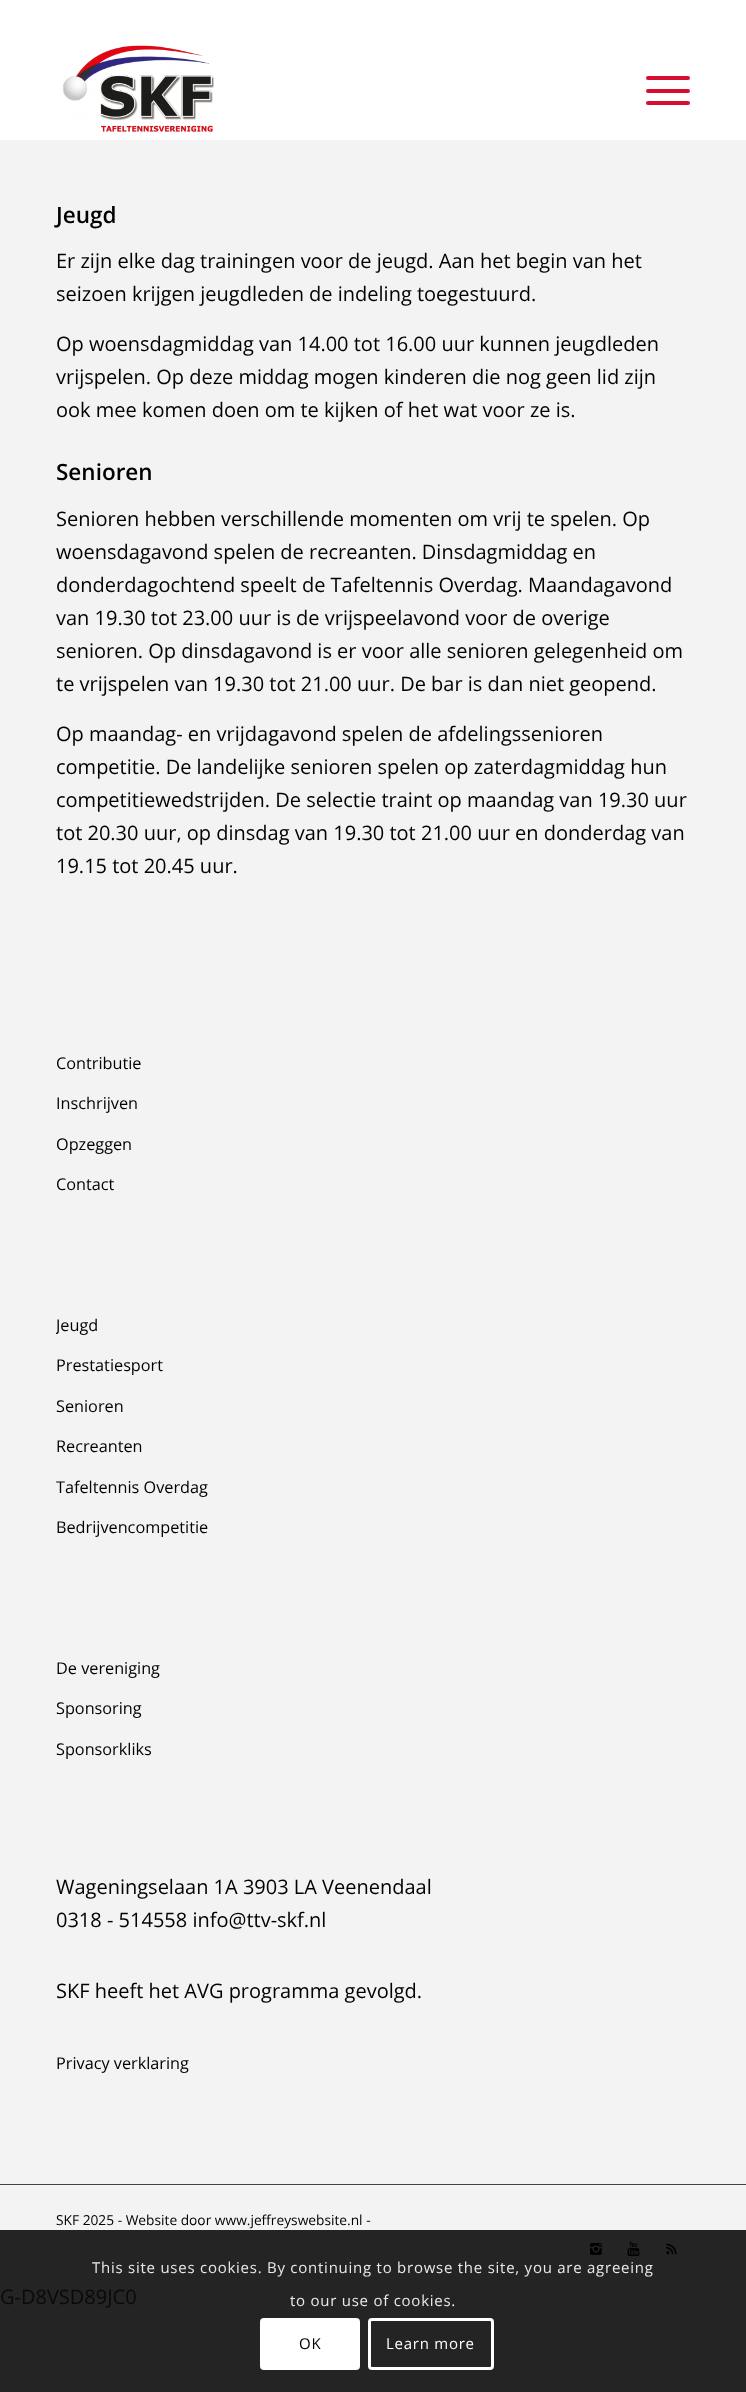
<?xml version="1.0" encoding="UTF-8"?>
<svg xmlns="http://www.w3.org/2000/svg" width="746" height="2392">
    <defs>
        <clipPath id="clip1"><rect x="56" y="1306" width="634" height="243"/></clipPath>
    </defs>
    <rect width="100%" height="100%" fill="#242424"/>
    <rect x="0" y="0" width="746" height="140" fill="#FFFFFF"/>
    <image x="63" y="45" width="151" height="87" href="img_01.png"/>
    <rect x="646" y="89" width="44" height="4" rx="2" fill="#D60F30"/>
    <rect x="646" y="76" width="44" height="4" rx="2" fill="#D60F30"/>
    <rect x="646" y="101" width="44" height="4" rx="2" fill="#D60F30"/>
    <rect x="0" y="140" width="746" height="2044" fill="#F3F3F3"/>
    <text x="56" y="223" font-family="Open Sans" font-size="22.5" font-weight="600" fill="#000000">Jeugd</text>
    <text font-family="Open Sans" font-size="20" fill="#000000">
        <tspan x="56" y="268">Er zijn elke dag trainingen voor de jeugd. Aan het begin van het</tspan>
        <tspan x="56" y="301">seizoen krijgen jeugdleden de indeling toegestuurd.</tspan>
    </text>
    <text font-family="Open Sans" font-size="20" fill="#000000">
        <tspan x="56" y="351">Op woensdagmiddag van 14.00 tot 16.00 uur kunnen jeugdleden</tspan>
        <tspan x="56" y="384">vrijspelen. Op deze middag mogen kinderen die nog geen lid zijn</tspan>
        <tspan x="56" y="417">ook mee komen doen om te kijken of het wat voor ze is.</tspan>
    </text>
    <text x="56" y="480" font-family="Open Sans" font-size="22.5" font-weight="600" fill="#000000">Senioren</text>
    <text font-family="Open Sans" font-size="20" fill="#000000">
        <tspan x="56" y="526">Senioren hebben verschillende momenten om vrij te spelen. Op</tspan>
        <tspan x="56" y="559">woensdagavond spelen de recreanten. Dinsdagmiddag en</tspan>
        <tspan x="56" y="592">donderdagochtend speelt de Tafeltennis Overdag. Maandagavond</tspan>
        <tspan x="56" y="625">van 19.30 tot 23.00 uur is de vrijspeelavond voor de overige</tspan>
        <tspan x="56" y="658">senioren. Op dinsdagavond is er voor alle senioren gelegenheid om</tspan>
        <tspan x="56" y="691">te vrijspelen van 19.30 tot 21.00 uur. De bar is dan niet geopend.</tspan>
    </text>
    <text font-family="Open Sans" font-size="20" fill="#000000">
        <tspan x="56" y="741">Op maandag- en vrijdagavond spelen de afdelingssenioren</tspan>
        <tspan x="56" y="774">competitie. De landelijke senioren spelen op zaterdagmiddag hun</tspan>
        <tspan x="56" y="807">competitiewedstrijden. De selectie traint op maandag van 19.30 uur</tspan>
        <tspan x="56" y="840">tot 20.30 uur, op dinsdag van 19.30 tot 21.00 uur en donderdag van</tspan>
        <tspan x="56" y="873">19.15 tot 20.45 uur.</tspan>
    </text>
    <text x="56" y="1069" font-family="Open Sans" font-size="16.25" fill="#000000">Contributie</text>
    <text x="56" y="1109" font-family="Open Sans" font-size="16.25" fill="#000000">Inschrijven</text>
    <text x="56" y="1150" font-family="Open Sans" font-size="16.25" fill="#000000">Opzeggen</text>
    <text x="56" y="1190" font-family="Open Sans" font-size="16.25" fill="#000000">Contact</text>
    <g clip-path="url(#clip1)">
        <text x="56" y="1331" font-family="Open Sans" font-size="16.25" fill="#000000">Jeugd</text>
    </g>
    <text x="56" y="1371" font-family="Open Sans" font-size="16.25" fill="#000000">Prestatiesport</text>
    <text x="56" y="1412" font-family="Open Sans" font-size="16.25" fill="#000000">Senioren</text>
    <text x="56" y="1452" font-family="Open Sans" font-size="16.25" fill="#000000">Recreanten</text>
    <text x="56" y="1493" font-family="Open Sans" font-size="16.25" fill="#000000">Tafeltennis Overdag</text>
    <text x="56" y="1533" font-family="Open Sans" font-size="16.25" fill="#000000">Bedrijvencompetitie</text>
    <text x="56" y="1674" font-family="Open Sans" font-size="16.25" fill="#000000">De vereniging</text>
    <text x="56" y="1714" font-family="Open Sans" font-size="16.25" fill="#000000">Sponsoring</text>
    <text x="56" y="1755" font-family="Open Sans" font-size="16.25" fill="#000000">Sponsorkliks</text>
    <text font-family="Open Sans" font-size="20" fill="#000000">
        <tspan x="56" y="1894">Wageningselaan 1A 3903 LA Veenendaal</tspan>
        <tspan x="56" y="1927">0318 - 514558 info@ttv-skf.nl</tspan>
    </text>
    <text x="56" y="1998" font-family="Open Sans" font-size="20" fill="#000000">SKF heeft het AVG programma gevolgd.</text>
    <text x="56" y="2069" font-family="Open Sans" font-size="16.25" fill="#000000">Privacy verklaring</text>
    <rect x="0" y="2185" width="746" height="45" fill="#F3F3F3"/>
    <rect x="0" y="2184" width="746" height="1" fill="#444444"/>
    <text x="56" y="2225" font-family="Open Sans" font-size="13.75" fill="#000000">SKF 2025 - Website door www.jeffreyswebsite.nl -</text>
    <image x="590" y="2243" width="12" height="12" href="img_02.png"/>
    <image x="627" y="2241" width="13" height="16" href="img_03.png"/>
    <image x="666" y="2243" width="11" height="12" href="img_04.png"/>
    <text x="0" y="2304" font-family="Open Sans" font-size="20" fill="#0A0A0A">G-D8VSD89JC0</text>
    <text x="92" y="2273" font-family="Open Sans" font-size="15" letter-spacing="0.75" fill="#E9E9E9">This site uses cookies. By continuing to browse the site, you are agreeing</text>
    <text x="290" y="2306" font-family="Open Sans" font-size="15" letter-spacing="0.75" fill="#E9E9E9">to our use of cookies.</text>
    <rect x="260" y="2318" width="100" height="52" rx="4" fill="#FFFFFF"/>
    <text x="299" y="2349" font-family="Open Sans" font-size="15" letter-spacing="0.75" fill="#000000">OK</text>
    <rect x="369.5" y="2319.5" width="123" height="49" rx="2.5" fill="none" stroke="#FFFFFF" stroke-width="3"/>
    <text x="386" y="2349" font-family="Open Sans" font-size="15" letter-spacing="0.75" fill="#FFFFFF">Learn more</text>
</svg>
